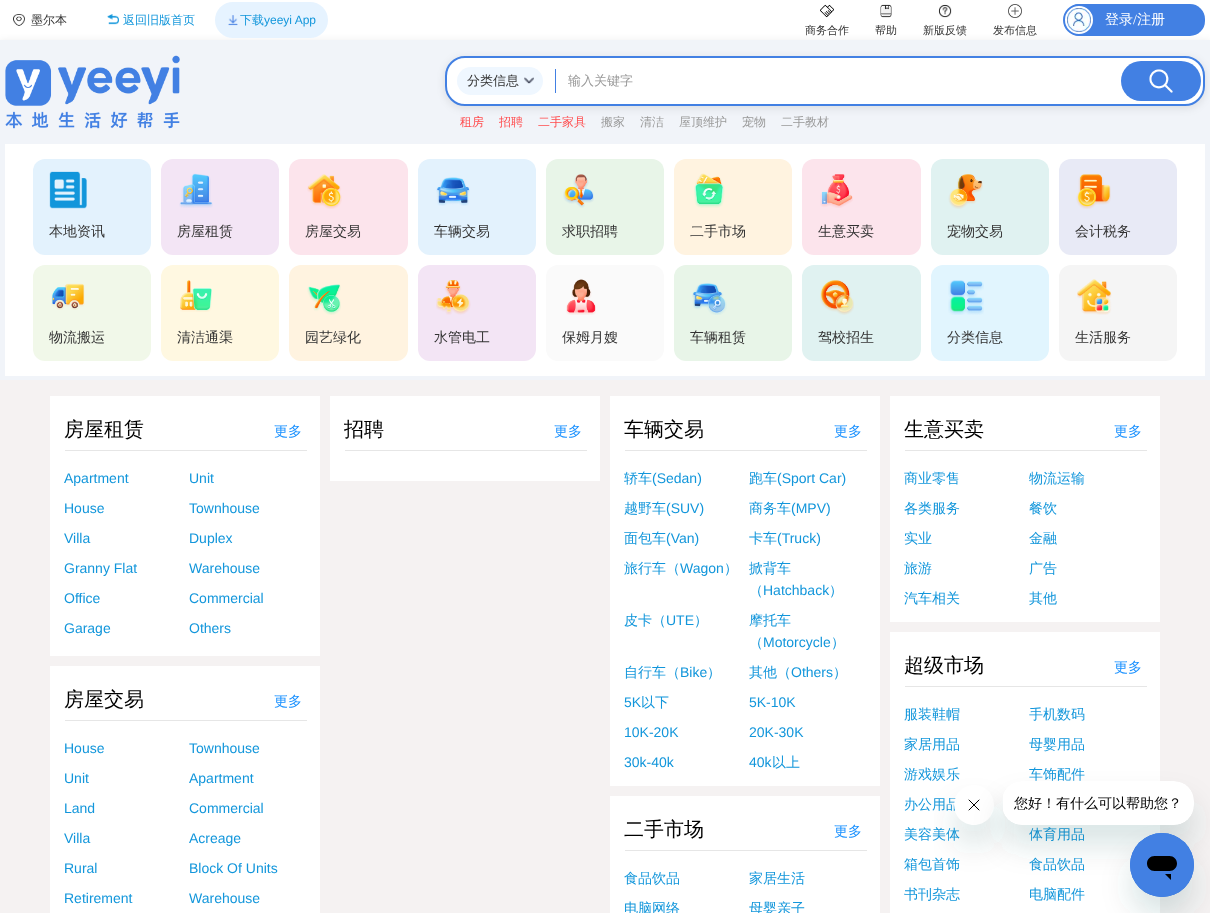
<?xml version="1.0" encoding="UTF-8"?>
<svg xmlns="http://www.w3.org/2000/svg" width="1210" height="913">
    <defs>
        <filter id="blur1" x="-50%" y="-200%" width="200%" height="500%"><feGaussianBlur stdDeviation="4"/></filter>
        <clipPath id="clip1"><path d="M 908 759 H 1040 V 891 H 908 Z M 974 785 C 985 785 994 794 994 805 C 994 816 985 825 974 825 C 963 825 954 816 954 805 C 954 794 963 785 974 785 Z" clip-rule="evenodd"/></clipPath>
        <filter id="blur2" x="-50%" y="-200%" width="200%" height="500%"><feGaussianBlur stdDeviation="15"/></filter>
    </defs>
    <rect width="100%" height="100%" fill="#FFFFFF"/>
    <image x="13" y="14" width="12" height="12" href="img_01.png"/>
    <text x="31" y="24" font-family="WenQuanYi Zen Hei" font-size="12" font-weight="500" fill="#333333">墨尔本</text>
    <image x="107" y="14" width="12" height="11" href="img_02.png"/>
    <text x="123" y="24" font-family="WenQuanYi Zen Hei" font-size="12" font-weight="500" fill="#1296DB">返回旧版首页</text>
    <rect x="0" y="42" width="1210" height="100" fill="#000000" fill-opacity="0.1" filter="url(#blur1)"/>
    <rect x="215" y="2" width="113" height="36" rx="18" fill="#E6F3FF"/>
    <image x="228" y="15" width="10" height="11" href="img_03.png"/>
    <text x="240" y="24" font-family="WenQuanYi Zen Hei" font-size="12" font-weight="500" fill="#1296DB">下载</text>
    <text x="264" y="24" font-family="Liberation Sans" font-size="12" fill="#1296DB">yeeyi App</text>
    <rect x="1065" y="4" width="140" height="32" rx="15" fill="#4280E3"/>
    <circle cx="1079" cy="20" r="15" fill="#FFFFFF" stroke="#4280E3" stroke-width="2"/>
    <image x="1067" y="8" width="24" height="24" href="img_04.png"/>
    <text x="1105" y="24" font-family="WenQuanYi Zen Hei" font-size="14" font-weight="500" fill="#FFFFFF">登录</text>
    <text x="1133" y="24" font-family="Liberation Serif" font-size="14" fill="#FFFFFF">/</text>
    <text x="1137" y="24" font-family="WenQuanYi Zen Hei" font-size="14" font-weight="500" fill="#FFFFFF">注册</text>
    <image x="820" y="4" width="14" height="14" href="img_05.png"/>
    <text x="805" y="34" font-family="WenQuanYi Zen Hei" font-size="11" font-weight="500" fill="#333333">商务合作</text>
    <image x="880" y="4" width="12" height="14" href="img_06.png"/>
    <text x="875" y="34" font-family="WenQuanYi Zen Hei" font-size="11" font-weight="500" fill="#333333">帮助</text>
    <image x="938" y="4" width="14" height="14" href="img_07.png"/>
    <text x="923" y="34" font-family="WenQuanYi Zen Hei" font-size="11" font-weight="500" fill="#333333">新版反馈</text>
    <image x="1008" y="4" width="14" height="14" href="img_08.png"/>
    <text x="993" y="34" font-family="WenQuanYi Zen Hei" font-size="11" font-weight="500" fill="#333333">发布信息</text>
    <rect x="0" y="40" width="1210" height="340" fill="#F1F4F9"/>
    <image x="5" y="55" width="175" height="74" href="img_09.png"/>
    <rect x="445" y="58" width="760" height="50" rx="20" fill="#000000" fill-opacity="0.1" filter="url(#blur1)"/>
    <rect x="446" y="57" width="758" height="48" rx="19" fill="#FFFFFF" stroke="#4280E3" stroke-width="2"/>
    <rect x="457" y="67" width="86" height="28" rx="14" fill="#EFF7FF"/>
    <image x="524" y="77" width="10" height="7" href="img_10.png"/>
    <text x="467" y="85" font-family="WenQuanYi Zen Hei" font-size="13" font-weight="500" fill="#333333">分类信息</text>
    <rect x="555" y="69" width="1" height="24" fill="#4280E3"/>
    <text x="568" y="85" font-family="WenQuanYi Zen Hei" font-size="13" font-weight="500" fill="#999999">输入关键字</text>
    <rect x="1121" y="61" width="80" height="40" rx="20" fill="#4280E3"/>
    <image x="1149" y="69" width="24" height="24" href="img_11.png"/>
    <text x="460" y="126" font-family="WenQuanYi Zen Hei" font-size="12" font-weight="500" fill="#FF4D4F">租房</text>
    <text x="499" y="126" font-family="WenQuanYi Zen Hei" font-size="12" font-weight="500" fill="#FF4D4F">招聘</text>
    <text x="538" y="126" font-family="WenQuanYi Zen Hei" font-size="12" font-weight="500" fill="#FF4D4F">二手家具</text>
    <text x="601" y="126" font-family="WenQuanYi Zen Hei" font-size="12" font-weight="500" fill="#999999">搬家</text>
    <text x="640" y="126" font-family="WenQuanYi Zen Hei" font-size="12" font-weight="500" fill="#999999">清洁</text>
    <text x="679" y="126" font-family="WenQuanYi Zen Hei" font-size="12" font-weight="500" fill="#999999">屋顶维护</text>
    <text x="742" y="126" font-family="WenQuanYi Zen Hei" font-size="12" font-weight="500" fill="#999999">宠物</text>
    <text x="781" y="126" font-family="WenQuanYi Zen Hei" font-size="12" font-weight="500" fill="#999999">二手教材</text>
    <rect x="5" y="144" width="1200" height="232" fill="#FFFFFF"/>
    <rect x="33" y="159" width="118" height="96" rx="12" fill="#E3F2FD"/>
    <image x="49" y="171" width="38" height="38" href="img_12.png"/>
    <text x="49" y="236" font-family="WenQuanYi Zen Hei" font-size="14" font-weight="500" fill="#333333">本地资讯</text>
    <rect x="161" y="159" width="118" height="96" rx="12" fill="#F3E5F5"/>
    <image x="179" y="173" width="34" height="35" href="img_13.png"/>
    <text x="177" y="236" font-family="WenQuanYi Zen Hei" font-size="14" font-weight="500" fill="#333333">房屋租赁</text>
    <rect x="289" y="159" width="119" height="96" rx="12" fill="#FCE4EC"/>
    <image x="307" y="174" width="35" height="35" href="img_14.png"/>
    <text x="305" y="236" font-family="WenQuanYi Zen Hei" font-size="14" font-weight="500" fill="#333333">房屋交易</text>
    <rect x="418" y="159" width="118" height="96" rx="12" fill="#E3F2FD"/>
    <image x="436" y="177" width="34" height="29" href="img_15.png"/>
    <text x="434" y="236" font-family="WenQuanYi Zen Hei" font-size="14" font-weight="500" fill="#333333">车辆交易</text>
    <rect x="546" y="159" width="118" height="96" rx="12" fill="#E8F5E8"/>
    <image x="563" y="174" width="31" height="34" href="img_16.png"/>
    <text x="562" y="236" font-family="WenQuanYi Zen Hei" font-size="14" font-weight="500" fill="#333333">求职招聘</text>
    <rect x="674" y="159" width="118" height="96" rx="12" fill="#FFF3E0"/>
    <image x="694" y="173" width="31" height="35" href="img_17.png"/>
    <text x="690" y="236" font-family="WenQuanYi Zen Hei" font-size="14" font-weight="500" fill="#333333">二手市场</text>
    <rect x="802" y="159" width="119" height="96" rx="12" fill="#FCE4EC"/>
    <image x="820" y="174" width="33" height="34" href="img_18.png"/>
    <text x="818" y="236" font-family="WenQuanYi Zen Hei" font-size="14" font-weight="500" fill="#333333">生意买卖</text>
    <rect x="931" y="159" width="118" height="96" rx="12" fill="#E0F2F1"/>
    <image x="948" y="174" width="35" height="35" href="img_19.png"/>
    <text x="947" y="236" font-family="WenQuanYi Zen Hei" font-size="14" font-weight="500" fill="#333333">宠物交易</text>
    <rect x="1059" y="159" width="118" height="96" rx="12" fill="#E8EAF6"/>
    <image x="1076" y="174" width="35" height="35" href="img_20.png"/>
    <text x="1075" y="236" font-family="WenQuanYi Zen Hei" font-size="14" font-weight="500" fill="#333333">会计税务</text>
    <rect x="33" y="265" width="118" height="96" rx="12" fill="#F1F8E9"/>
    <image x="51" y="283" width="34" height="27" href="img_21.png"/>
    <text x="49" y="342" font-family="WenQuanYi Zen Hei" font-size="14" font-weight="500" fill="#333333">物流搬运</text>
    <rect x="161" y="265" width="118" height="96" rx="12" fill="#FFF8E1"/>
    <image x="180" y="280" width="32" height="32" href="img_22.png"/>
    <text x="177" y="342" font-family="WenQuanYi Zen Hei" font-size="14" font-weight="500" fill="#333333">清洁通渠</text>
    <rect x="289" y="265" width="119" height="96" rx="12" fill="#FFF3E0"/>
    <image x="307" y="284" width="34" height="31" href="img_23.png"/>
    <text x="305" y="342" font-family="WenQuanYi Zen Hei" font-size="14" font-weight="500" fill="#333333">园艺绿化</text>
    <rect x="418" y="265" width="118" height="96" rx="12" fill="#F3E5F5"/>
    <image x="436" y="280" width="35" height="35" href="img_24.png"/>
    <text x="434" y="342" font-family="WenQuanYi Zen Hei" font-size="14" font-weight="500" fill="#333333">水管电工</text>
    <rect x="546" y="265" width="118" height="96" rx="12" fill="#FAFAFA"/>
    <image x="566" y="279" width="30" height="36" href="img_25.png"/>
    <text x="562" y="342" font-family="WenQuanYi Zen Hei" font-size="14" font-weight="500" fill="#333333">保姆月嫂</text>
    <rect x="674" y="265" width="118" height="96" rx="12" fill="#E8F5E8"/>
    <image x="692" y="283" width="35" height="32" href="img_26.png"/>
    <text x="690" y="342" font-family="WenQuanYi Zen Hei" font-size="14" font-weight="500" fill="#333333">车辆租赁</text>
    <rect x="802" y="265" width="119" height="96" rx="12" fill="#E0F2F1"/>
    <image x="820" y="280" width="34" height="35" href="img_27.png"/>
    <text x="818" y="342" font-family="WenQuanYi Zen Hei" font-size="14" font-weight="500" fill="#333333">驾校招生</text>
    <rect x="931" y="265" width="118" height="96" rx="12" fill="#E1F5FE"/>
    <image x="948" y="280" width="36" height="35" href="img_28.png"/>
    <text x="947" y="342" font-family="WenQuanYi Zen Hei" font-size="14" font-weight="500" fill="#333333">分类信息</text>
    <rect x="1059" y="265" width="118" height="96" rx="12" fill="#F5F5F5"/>
    <image x="1077" y="279" width="35" height="36" href="img_29.png"/>
    <text x="1075" y="342" font-family="WenQuanYi Zen Hei" font-size="14" font-weight="500" fill="#333333">生活服务</text>
    <rect x="0" y="380" width="1210" height="533" fill="#F5F2F2"/>
    <rect x="50" y="396" width="270" height="260" fill="#FFFFFF"/>
    <text x="64" y="436" font-family="WenQuanYi Zen Hei" font-size="20" font-weight="500" fill="#000000">房屋租赁</text>
    <text x="274" y="436" font-family="WenQuanYi Zen Hei" font-size="14" font-weight="500" fill="#1890FF">更多</text>
    <rect x="65" y="450" width="242" height="1" fill="#E6E6E6"/>
    <text x="64" y="483" font-family="Liberation Sans" font-size="14" fill="#1296DB">Apartment</text>
    <text x="189" y="483" font-family="Liberation Sans" font-size="14" fill="#1296DB">Unit</text>
    <text x="64" y="513" font-family="Liberation Sans" font-size="14" fill="#1296DB">House</text>
    <text x="189" y="513" font-family="Liberation Sans" font-size="14" fill="#1296DB">Townhouse</text>
    <text x="64" y="543" font-family="Liberation Sans" font-size="14" fill="#1296DB">Villa</text>
    <text x="189" y="543" font-family="Liberation Sans" font-size="14" fill="#1296DB">Duplex</text>
    <text x="64" y="573" font-family="Liberation Sans" font-size="14" fill="#1296DB">Granny Flat</text>
    <text x="189" y="573" font-family="Liberation Sans" font-size="14" fill="#1296DB">Warehouse</text>
    <text x="64" y="603" font-family="Liberation Sans" font-size="14" fill="#1296DB">Office</text>
    <text x="189" y="603" font-family="Liberation Sans" font-size="14" fill="#1296DB">Commercial</text>
    <text x="64" y="633" font-family="Liberation Sans" font-size="14" fill="#1296DB">Garage</text>
    <text x="189" y="633" font-family="Liberation Sans" font-size="14" fill="#1296DB">Others</text>
    <rect x="50" y="666" width="270" height="247" fill="#FFFFFF"/>
    <text x="64" y="706" font-family="WenQuanYi Zen Hei" font-size="20" font-weight="500" fill="#000000">房屋交易</text>
    <text x="274" y="706" font-family="WenQuanYi Zen Hei" font-size="14" font-weight="500" fill="#1890FF">更多</text>
    <rect x="65" y="720" width="242" height="1" fill="#E6E6E6"/>
    <text x="64" y="753" font-family="Liberation Sans" font-size="14" fill="#1296DB">House</text>
    <text x="189" y="753" font-family="Liberation Sans" font-size="14" fill="#1296DB">Townhouse</text>
    <text x="64" y="783" font-family="Liberation Sans" font-size="14" fill="#1296DB">Unit</text>
    <text x="189" y="783" font-family="Liberation Sans" font-size="14" fill="#1296DB">Apartment</text>
    <text x="64" y="813" font-family="Liberation Sans" font-size="14" fill="#1296DB">Land</text>
    <text x="189" y="813" font-family="Liberation Sans" font-size="14" fill="#1296DB">Commercial</text>
    <text x="64" y="843" font-family="Liberation Sans" font-size="14" fill="#1296DB">Villa</text>
    <text x="189" y="843" font-family="Liberation Sans" font-size="14" fill="#1296DB">Acreage</text>
    <text x="64" y="873" font-family="Liberation Sans" font-size="14" fill="#1296DB">Rural</text>
    <text x="189" y="873" font-family="Liberation Sans" font-size="14" fill="#1296DB">Block Of Units</text>
    <text x="64" y="903" font-family="Liberation Sans" font-size="14" fill="#1296DB">Retirement</text>
    <text x="189" y="903" font-family="Liberation Sans" font-size="14" fill="#1296DB">Warehouse</text>
    <rect x="330" y="396" width="270" height="85" fill="#FFFFFF"/>
    <text x="344" y="436" font-family="WenQuanYi Zen Hei" font-size="20" font-weight="500" fill="#000000">招聘</text>
    <text x="554" y="436" font-family="WenQuanYi Zen Hei" font-size="14" font-weight="500" fill="#1890FF">更多</text>
    <rect x="345" y="450" width="242" height="1" fill="#E6E6E6"/>
    <rect x="610" y="396" width="270" height="390" fill="#FFFFFF"/>
    <text x="624" y="436" font-family="WenQuanYi Zen Hei" font-size="20" font-weight="500" fill="#000000">车辆交易</text>
    <text x="834" y="436" font-family="WenQuanYi Zen Hei" font-size="14" font-weight="500" fill="#1890FF">更多</text>
    <rect x="625" y="450" width="242" height="1" fill="#E6E6E6"/>
    <text x="624" y="483" font-family="WenQuanYi Zen Hei" font-size="14" font-weight="500" fill="#1296DB">轿车</text>
    <text x="652" y="483" font-family="Liberation Sans" font-size="14" fill="#1296DB">(Sedan)</text>
    <text x="749" y="483" font-family="WenQuanYi Zen Hei" font-size="14" font-weight="500" fill="#1296DB">跑车</text>
    <text x="777" y="483" font-family="Liberation Sans" font-size="14" fill="#1296DB">(Sport Car)</text>
    <text x="624" y="513" font-family="WenQuanYi Zen Hei" font-size="14" font-weight="500" fill="#1296DB">越野车</text>
    <text x="666" y="513" font-family="Liberation Sans" font-size="14" fill="#1296DB">(SUV)</text>
    <text x="749" y="513" font-family="WenQuanYi Zen Hei" font-size="14" font-weight="500" fill="#1296DB">商务车</text>
    <text x="791" y="513" font-family="Liberation Sans" font-size="14" fill="#1296DB">(MPV)</text>
    <text x="624" y="543" font-family="WenQuanYi Zen Hei" font-size="14" font-weight="500" fill="#1296DB">面包车</text>
    <text x="666" y="543" font-family="Liberation Sans" font-size="14" fill="#1296DB">(Van)</text>
    <text x="749" y="543" font-family="WenQuanYi Zen Hei" font-size="14" font-weight="500" fill="#1296DB">卡车</text>
    <text x="777" y="543" font-family="Liberation Sans" font-size="14" fill="#1296DB">(Truck)</text>
    <text x="624" y="573" font-family="WenQuanYi Zen Hei" font-size="14" font-weight="500" fill="#1296DB">旅行车（</text>
    <text x="680" y="573" font-family="Liberation Sans" font-size="14" fill="#1296DB">Wagon</text>
    <text x="724" y="573" font-family="WenQuanYi Zen Hei" font-size="14" font-weight="500" fill="#1296DB">）</text>
    <text font-family="WenQuanYi Zen Hei" font-size="14" font-weight="500" fill="#1296DB">
        <tspan x="749" y="573">掀背车</tspan>
        <tspan x="749" y="595">（</tspan>
    </text>
    <text x="763" y="595" font-family="Liberation Sans" font-size="14" fill="#1296DB">Hatchback</text>
    <text x="829" y="595" font-family="WenQuanYi Zen Hei" font-size="14" font-weight="500" fill="#1296DB">）</text>
    <text x="624" y="625" font-family="WenQuanYi Zen Hei" font-size="14" font-weight="500" fill="#1296DB">皮卡（</text>
    <text x="666" y="625" font-family="Liberation Sans" font-size="14" fill="#1296DB">UTE</text>
    <text x="694" y="625" font-family="WenQuanYi Zen Hei" font-size="14" font-weight="500" fill="#1296DB">）</text>
    <text font-family="WenQuanYi Zen Hei" font-size="14" font-weight="500" fill="#1296DB">
        <tspan x="749" y="625">摩托车</tspan>
        <tspan x="749" y="647">（</tspan>
    </text>
    <text x="763" y="647" font-family="Liberation Sans" font-size="14" fill="#1296DB">Motorcycle</text>
    <text x="831" y="647" font-family="WenQuanYi Zen Hei" font-size="14" font-weight="500" fill="#1296DB">）</text>
    <text x="624" y="677" font-family="WenQuanYi Zen Hei" font-size="14" font-weight="500" fill="#1296DB">自行车（</text>
    <text x="680" y="677" font-family="Liberation Sans" font-size="14" fill="#1296DB">Bike</text>
    <text x="707" y="677" font-family="WenQuanYi Zen Hei" font-size="14" font-weight="500" fill="#1296DB">）</text>
    <text x="749" y="677" font-family="WenQuanYi Zen Hei" font-size="14" font-weight="500" fill="#1296DB">其他（</text>
    <text x="791" y="677" font-family="Liberation Sans" font-size="14" fill="#1296DB">Others</text>
    <text x="833" y="677" font-family="WenQuanYi Zen Hei" font-size="14" font-weight="500" fill="#1296DB">）</text>
    <text x="624" y="707" font-family="Liberation Sans" font-size="14" fill="#1296DB">5K</text>
    <text x="641" y="707" font-family="WenQuanYi Zen Hei" font-size="14" font-weight="500" fill="#1296DB">以下</text>
    <text x="749" y="707" font-family="Liberation Sans" font-size="14" fill="#1296DB">5K-10K</text>
    <text x="624" y="737" font-family="Liberation Sans" font-size="14" fill="#1296DB">10K-20K</text>
    <text x="749" y="737" font-family="Liberation Sans" font-size="14" fill="#1296DB">20K-30K</text>
    <text x="624" y="767" font-family="Liberation Sans" font-size="14" fill="#1296DB">30k-40k</text>
    <text x="749" y="767" font-family="Liberation Sans" font-size="14" fill="#1296DB">40k</text>
    <text x="772" y="767" font-family="WenQuanYi Zen Hei" font-size="14" font-weight="500" fill="#1296DB">以上</text>
    <rect x="610" y="796" width="270" height="117" fill="#FFFFFF"/>
    <text x="624" y="836" font-family="WenQuanYi Zen Hei" font-size="20" font-weight="500" fill="#000000">二手市场</text>
    <text x="834" y="836" font-family="WenQuanYi Zen Hei" font-size="14" font-weight="500" fill="#1890FF">更多</text>
    <rect x="625" y="850" width="242" height="1" fill="#E6E6E6"/>
    <text x="624" y="883" font-family="WenQuanYi Zen Hei" font-size="14" font-weight="500" fill="#1296DB">食品饮品</text>
    <text x="749" y="883" font-family="WenQuanYi Zen Hei" font-size="14" font-weight="500" fill="#1296DB">家居生活</text>
    <text x="624" y="913" font-family="WenQuanYi Zen Hei" font-size="14" font-weight="500" fill="#1296DB">电脑网络</text>
    <text x="749" y="913" font-family="WenQuanYi Zen Hei" font-size="14" font-weight="500" fill="#1296DB">母婴亲子</text>
    <rect x="890" y="396" width="270" height="226" fill="#FFFFFF"/>
    <text x="904" y="436" font-family="WenQuanYi Zen Hei" font-size="20" font-weight="500" fill="#000000">生意买卖</text>
    <text x="1114" y="436" font-family="WenQuanYi Zen Hei" font-size="14" font-weight="500" fill="#1890FF">更多</text>
    <rect x="905" y="450" width="242" height="1" fill="#E6E6E6"/>
    <text x="904" y="483" font-family="WenQuanYi Zen Hei" font-size="14" font-weight="500" fill="#1296DB">商业零售</text>
    <text x="1029" y="483" font-family="WenQuanYi Zen Hei" font-size="14" font-weight="500" fill="#1296DB">物流运输</text>
    <text x="904" y="513" font-family="WenQuanYi Zen Hei" font-size="14" font-weight="500" fill="#1296DB">各类服务</text>
    <text x="1029" y="513" font-family="WenQuanYi Zen Hei" font-size="14" font-weight="500" fill="#1296DB">餐饮</text>
    <text x="904" y="543" font-family="WenQuanYi Zen Hei" font-size="14" font-weight="500" fill="#1296DB">实业</text>
    <text x="1029" y="543" font-family="WenQuanYi Zen Hei" font-size="14" font-weight="500" fill="#1296DB">金融</text>
    <text x="904" y="573" font-family="WenQuanYi Zen Hei" font-size="14" font-weight="500" fill="#1296DB">旅游</text>
    <text x="1029" y="573" font-family="WenQuanYi Zen Hei" font-size="14" font-weight="500" fill="#1296DB">广告</text>
    <text x="904" y="603" font-family="WenQuanYi Zen Hei" font-size="14" font-weight="500" fill="#1296DB">汽车相关</text>
    <text x="1029" y="603" font-family="WenQuanYi Zen Hei" font-size="14" font-weight="500" fill="#1296DB">其他</text>
    <rect x="890" y="632" width="270" height="281" fill="#FFFFFF"/>
    <text x="904" y="672" font-family="WenQuanYi Zen Hei" font-size="20" font-weight="500" fill="#000000">超级市场</text>
    <text x="1114" y="672" font-family="WenQuanYi Zen Hei" font-size="14" font-weight="500" fill="#1890FF">更多</text>
    <rect x="905" y="686" width="242" height="1" fill="#E6E6E6"/>
    <text x="904" y="719" font-family="WenQuanYi Zen Hei" font-size="14" font-weight="500" fill="#1296DB">服装鞋帽</text>
    <text x="1029" y="719" font-family="WenQuanYi Zen Hei" font-size="14" font-weight="500" fill="#1296DB">手机数码</text>
    <text x="904" y="749" font-family="WenQuanYi Zen Hei" font-size="14" font-weight="500" fill="#1296DB">家居用品</text>
    <text x="1029" y="749" font-family="WenQuanYi Zen Hei" font-size="14" font-weight="500" fill="#1296DB">母婴用品</text>
    <text x="904" y="779" font-family="WenQuanYi Zen Hei" font-size="14" font-weight="500" fill="#1296DB">游戏娱乐</text>
    <text x="1029" y="779" font-family="WenQuanYi Zen Hei" font-size="14" font-weight="500" fill="#1296DB">车饰配件</text>
    <text x="904" y="809" font-family="WenQuanYi Zen Hei" font-size="14" font-weight="500" fill="#1296DB">办公用品</text>
    <text x="904" y="839" font-family="WenQuanYi Zen Hei" font-size="14" font-weight="500" fill="#1296DB">美容美体</text>
    <text x="1029" y="839" font-family="WenQuanYi Zen Hei" font-size="14" font-weight="500" fill="#1296DB">体育用品</text>
    <text x="904" y="869" font-family="WenQuanYi Zen Hei" font-size="14" font-weight="500" fill="#1296DB">箱包首饰</text>
    <text x="1029" y="869" font-family="WenQuanYi Zen Hei" font-size="14" font-weight="500" fill="#1296DB">食品饮品</text>
    <text x="904" y="899" font-family="WenQuanYi Zen Hei" font-size="14" font-weight="500" fill="#1296DB">书刊杂志</text>
    <text x="1029" y="899" font-family="WenQuanYi Zen Hei" font-size="14" font-weight="500" fill="#1296DB">电脑配件</text>
    <g clip-path="url(#clip1)">
        <rect x="954" y="805" width="40" height="40" rx="20" fill="#17494D" fill-opacity="0.15" filter="url(#blur2)"/>
    </g>
    <image x="954" y="797" width="26" height="14" href="img_31.png"/>
    <rect x="1002" y="801" width="192" height="44" rx="20" fill="#17494D" fill-opacity="0.15" filter="url(#blur2)"/>
    <image x="1003" y="781" width="191" height="44" href="img_30.png"/>
    <rect x="1130" y="853" width="64" height="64" rx="32" fill="#17494D" fill-opacity="0.15" filter="url(#blur2)"/>
    <image x="1130" y="833" width="64" height="64" href="img_32.png"/>
</svg>
